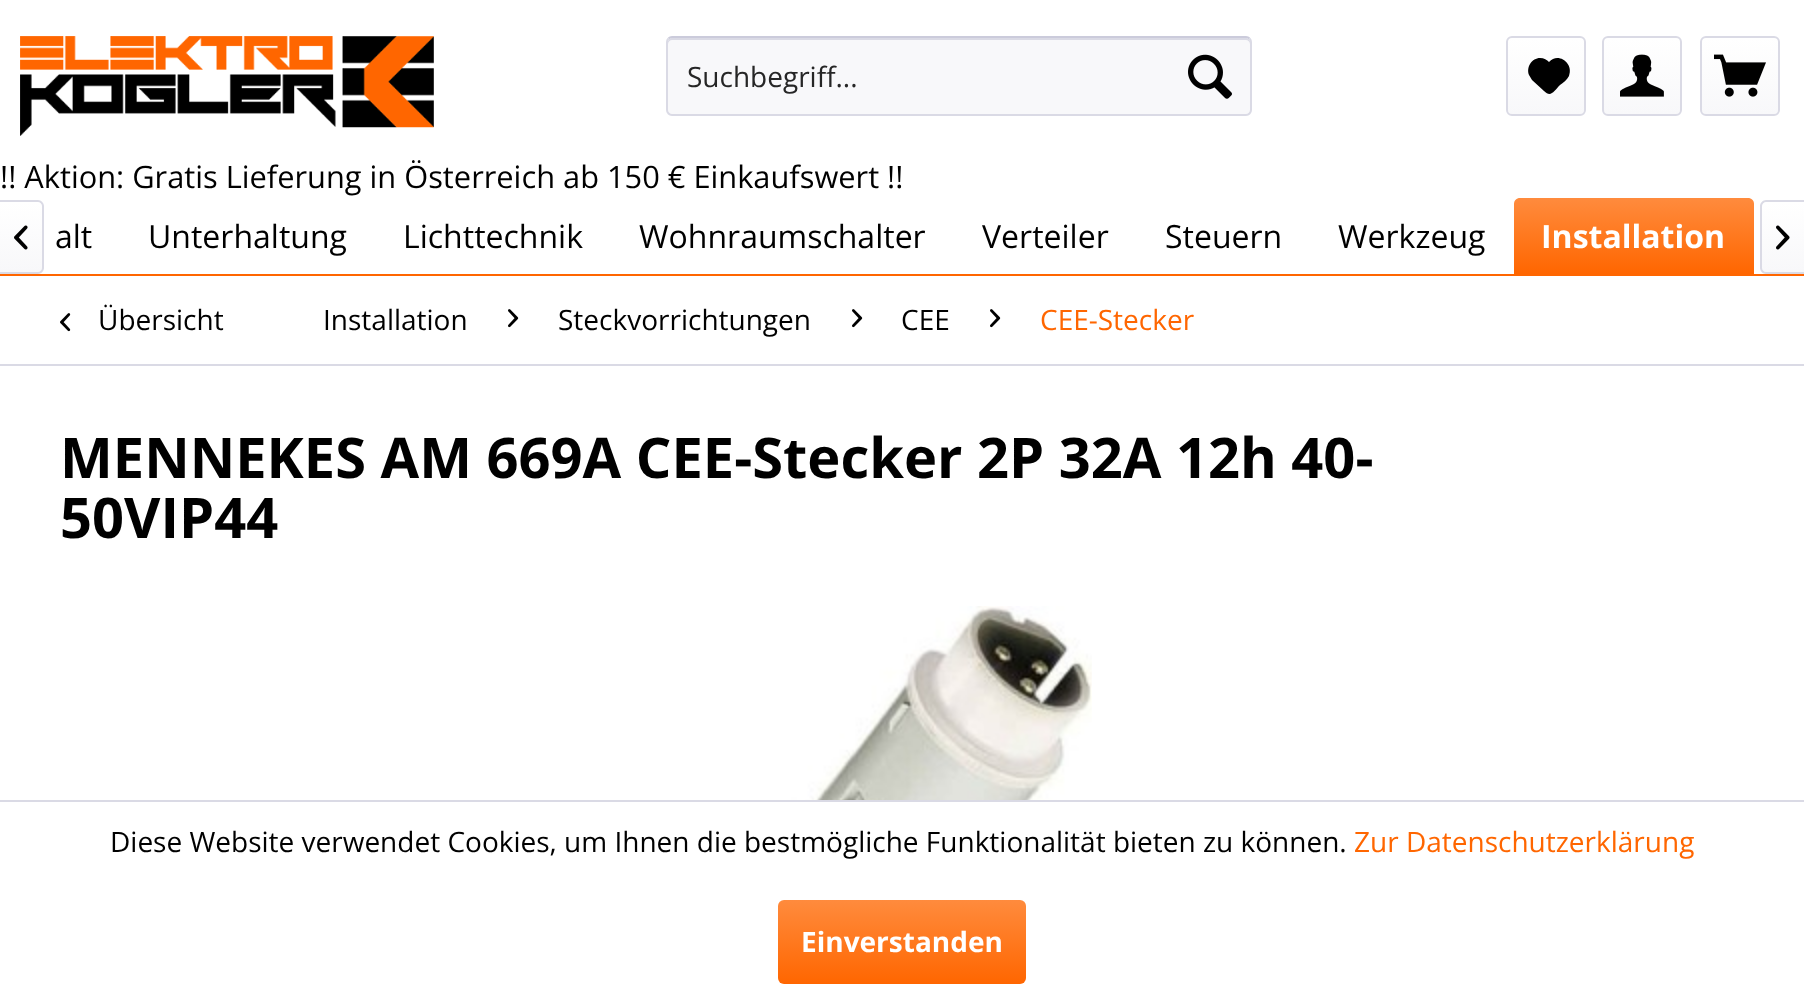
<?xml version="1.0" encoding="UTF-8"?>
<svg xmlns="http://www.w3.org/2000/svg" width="1804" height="1003">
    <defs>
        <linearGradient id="g1" gradientUnits="userSpaceOnUse" x1="1546" y1="38" x2="1546" y2="114"><stop offset="0" stop-color="#FFFFFF"/><stop offset="1" stop-color="#F8F8FA"/></linearGradient>
        <linearGradient id="g2" gradientUnits="userSpaceOnUse" x1="1642" y1="38" x2="1642" y2="114"><stop offset="0" stop-color="#FFFFFF"/><stop offset="1" stop-color="#F8F8FA"/></linearGradient>
        <linearGradient id="g3" gradientUnits="userSpaceOnUse" x1="1740" y1="38" x2="1740" y2="114"><stop offset="0" stop-color="#FFFFFF"/><stop offset="1" stop-color="#F8F8FA"/></linearGradient>
        <linearGradient id="g4" gradientUnits="userSpaceOnUse" x1="21" y1="202" x2="21" y2="272"><stop offset="0" stop-color="#FFFFFF"/><stop offset="1" stop-color="#F8F8FA"/></linearGradient>
        <linearGradient id="g5" gradientUnits="userSpaceOnUse" x1="1634" y1="198" x2="1634" y2="274"><stop offset="0" stop-color="#FF8B3D"/><stop offset="1" stop-color="#FF6600"/></linearGradient>
        <linearGradient id="g6" gradientUnits="userSpaceOnUse" x1="1783" y1="202" x2="1783" y2="272"><stop offset="0" stop-color="#FFFFFF"/><stop offset="1" stop-color="#F8F8FA"/></linearGradient>
        <linearGradient id="g7" gradientUnits="userSpaceOnUse" x1="902" y1="900" x2="902" y2="984"><stop offset="0" stop-color="#FF8B3D"/><stop offset="1" stop-color="#FF6600"/></linearGradient>
    </defs>
    <rect width="100%" height="100%" fill="#FFFFFF"/>
    <image x="20" y="36" width="414" height="100" href="img_01.png"/>
    <rect x="666" y="36" width="586" height="80" rx="6" fill="#F8F8FA"/>
    <path d="M 672 40 H 1246 C 1248 40 1250 42 1250 44 V 42 C 1250 40 1248 38 1246 38 H 672 C 670 38 668 40 668 42 V 44 C 668 42 670 40 672 40 Z" fill="#DADAE5"/>
    <path d="M 668.5 38.5 C 669.5 37.5 670.5 37 672 37 H 1246 C 1247.5 37 1248.5 37.5 1249.5 38.5" fill="none" stroke="#CBCBDB" stroke-width="2"/>
    <path d="M 1249.5 38.5 C 1250.5 39.5 1251 40.5 1251 42 V 110 C 1251 111.5 1250.5 112.5 1249.5 113.5 C 1248.5 114.5 1247.5 115 1246 115 H 672 C 670.5 115 669.5 114.5 668.5 113.5 C 667.5 112.5 667 111.5 667 110 V 42 C 667 40.5 667.5 39.5 668.5 38.5" fill="none" stroke="#DADAE5" stroke-width="2"/>
    <text x="687" y="87" font-family="Open Sans" font-size="28" fill="#262626">Suchbegriff...</text>
    <image x="1188" y="54" width="44" height="45" href="img_02.png"/>
    <rect x="1508" y="38" width="76" height="76" rx="4" fill="url(#g1)"/>
    <rect x="1507" y="37" width="78" height="78" rx="5" fill="none" stroke="#DADAE5" stroke-width="2"/>
    <path d="M 1540 58 C 1532 58 1526 67 1529 75 L 1532 80 L 1544 91 C 1551 98 1554 91 1560 85 C 1563 83 1567 80 1569 76 C 1574 63 1558 52 1549 62 C 1547 60 1544 58 1540 58 Z" fill="#000000"/>
    <rect x="1604" y="38" width="76" height="76" rx="4" fill="url(#g2)"/>
    <rect x="1603" y="37" width="78" height="78" rx="5" fill="none" stroke="#DADAE5" stroke-width="2"/>
    <image x="1620" y="54" width="44" height="43" href="img_03.png"/>
    <rect x="1702" y="38" width="76" height="76" rx="4" fill="url(#g3)"/>
    <rect x="1701" y="37" width="78" height="78" rx="5" fill="none" stroke="#DADAE5" stroke-width="2"/>
    <image x="1714" y="54" width="52" height="43" href="img_04.png"/>
    <text x="0" y="188" font-family="Open Sans" font-size="30.8" fill="#000000">!! Aktion: Gratis Lieferung in Österreich ab 150 € Einkaufswert !!</text>
    <rect x="0" y="274" width="1804" height="2" fill="#FF6600"/>
    <path d="M 0 202 H 38 C 40 202 42 204 42 206 V 268 C 42 270 40 272 38 272 H 0 Z" fill="url(#g4)"/>
    <path d="M 0 200 H 38 C 41 200 44 203 44 206 V 268 C 44 271 41 274 38 274 H 0 Z M 0 202 H 38 C 40 202 42 204 42 206 V 268 C 42 270 40 272 38 272 H 0 Z" fill="#DADAE5" fill-rule="evenodd"/>
    <image x="14" y="225" width="14" height="25" href="img_05.png"/>
    <text x="55" y="248" font-family="Open Sans" font-size="32" fill="#000000">alt</text>
    <text x="148" y="248" font-family="Open Sans" font-size="32" fill="#000000">Unterhaltung</text>
    <text x="403" y="248" font-family="Open Sans" font-size="32" fill="#000000">Lichttechnik</text>
    <text x="639" y="248" font-family="Open Sans" font-size="32" fill="#000000">Wohnraumschalter</text>
    <text x="982" y="248" font-family="Open Sans" font-size="32" fill="#000000">Verteiler</text>
    <text x="1165" y="248" font-family="Open Sans" font-size="32" fill="#000000">Steuern</text>
    <text x="1338" y="248" font-family="Open Sans" font-size="32" fill="#000000">Werkzeug</text>
    <path d="M 1520 198 H 1748 C 1751.5 198 1754 200.5 1754 204 V 274 H 1514 V 204 C 1514 200.5 1516.5 198 1520 198 Z" fill="url(#g5)"/>
    <text x="1541" y="248" font-family="Open Sans" font-size="32" font-weight="700" fill="#FFFFFF">Installation</text>
    <path d="M 1766 202 H 1804 V 272 H 1766 C 1764 272 1762 270 1762 268 V 206 C 1762 204 1764 202 1766 202 Z" fill="url(#g6)"/>
    <path d="M 1766 200 H 1804 V 274 H 1766 C 1763 274 1760 271 1760 268 V 206 C 1760 203 1763 200 1766 200 Z M 1766 202 H 1804 V 272 H 1766 C 1764 272 1762 270 1762 268 V 206 C 1762 204 1764 202 1766 202 Z" fill="#DADAE5" fill-rule="evenodd"/>
    <image x="1776" y="225" width="14" height="25" href="img_06.png"/>
    <rect x="0" y="364" width="1804" height="2" fill="#DADAE5"/>
    <image x="60" y="313" width="11" height="19" href="img_07.png"/>
    <text x="98" y="330" font-family="Open Sans" font-size="28" fill="#000000">Übersicht</text>
    <text x="323" y="330" font-family="Open Sans" font-size="28" fill="#000000">Installation</text>
    <image x="508" y="309" width="11" height="19" href="img_08.png"/>
    <text x="558" y="330" font-family="Open Sans" font-size="28" fill="#000000">Steckvorrichtungen</text>
    <image x="852" y="309" width="11" height="19" href="img_08.png"/>
    <text x="901" y="330" font-family="Open Sans" font-size="28" fill="#000000">CEE</text>
    <image x="990" y="309" width="11" height="19" href="img_08.png"/>
    <text x="1040" y="330" font-family="Open Sans" font-size="28" fill="#FF6600">CEE-Stecker</text>
    <text font-family="Open Sans" font-size="56" font-weight="700" fill="#000000">
        <tspan x="60" y="478">MENNEKES AM 669A CEE-Stecker 2P 32A 12h 40-</tspan>
        <tspan x="60" y="538">50VIP44</tspan>
    </text>
    <image x="712" y="606" width="380" height="194" href="img_09.png"/>
    <rect x="0" y="800" width="1804" height="2" fill="#DADAE5"/>
    <text x="110" y="852" font-family="Open Sans" font-size="28" fill="#000000">Diese Website verwendet Cookies, um Ihnen die bestmögliche Funktionalität bieten zu können.</text>
    <text x="1354" y="852" font-family="Open Sans" font-size="28" fill="#FF6600">Zur Datenschutzerklärung</text>
    <rect x="778" y="900" width="248" height="84" rx="6" fill="url(#g7)"/>
    <text x="801" y="952" font-family="Open Sans" font-size="28" font-weight="700" fill="#FFFFFF">Einverstanden</text>
</svg>
